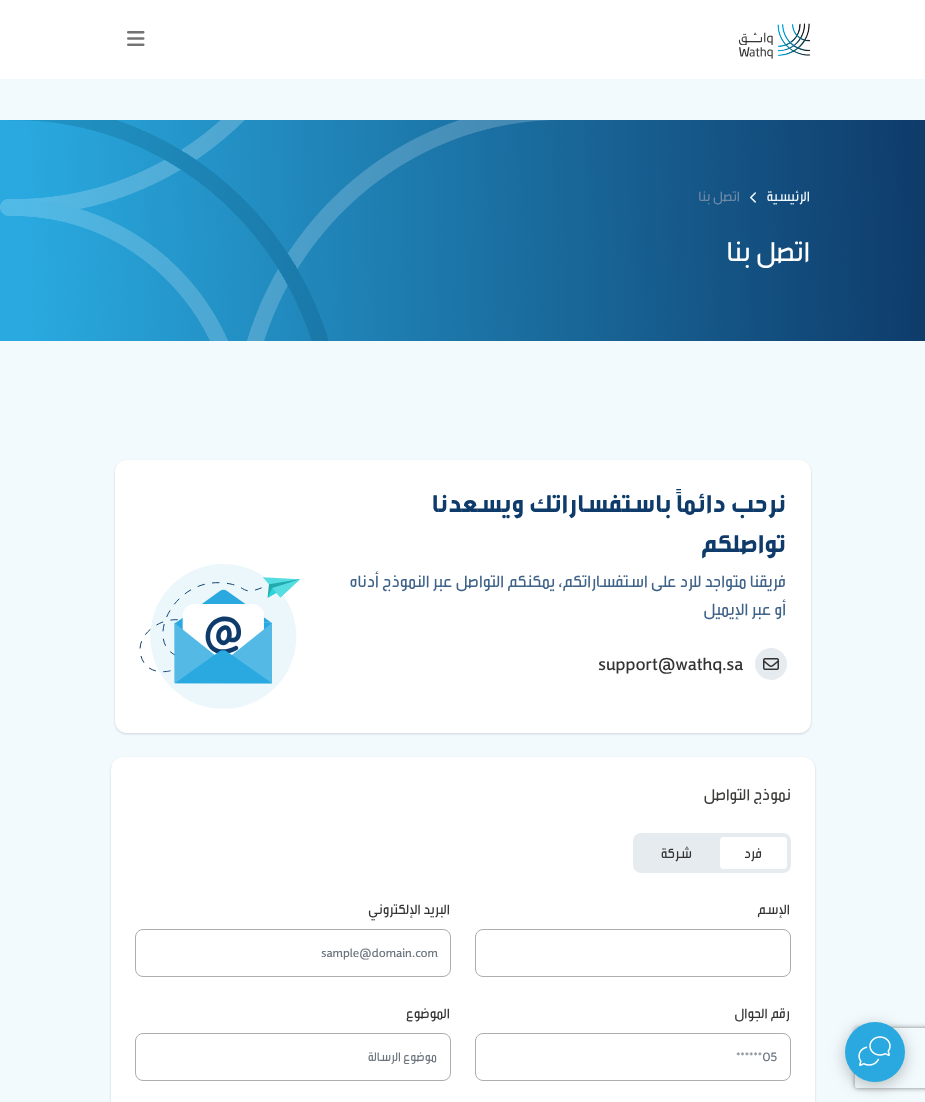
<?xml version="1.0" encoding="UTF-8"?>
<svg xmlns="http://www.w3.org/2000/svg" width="925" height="1102">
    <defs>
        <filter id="blur1" x="-50%" y="-200%" width="200%" height="500%"><feGaussianBlur stdDeviation="8"/></filter>
        <clipPath id="clip1"><path d="M 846 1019 H 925 V 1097 H 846 Z M 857 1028 H 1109 C 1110 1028 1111 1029 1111 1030 V 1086 C 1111 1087 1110 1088 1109 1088 H 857 C 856 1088 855 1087 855 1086 V 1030 C 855 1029 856 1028 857 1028 Z" clip-rule="evenodd"/></clipPath>
        <filter id="blur2" x="-50%" y="-200%" width="200%" height="500%"><feGaussianBlur stdDeviation="2.5"/></filter>
        <filter id="blur3" x="-50%" y="-200%" width="200%" height="500%"><feGaussianBlur stdDeviation="1"/></filter>
        <clipPath id="clip2"><rect x="148" y="1050" width="290" height="14"/></clipPath>
    </defs>
    <rect width="100%" height="100%" fill="#F2FAFD"/>
    <rect x="845" y="1026" width="60" height="60" rx="30" fill="#000000" fill-opacity="0.25" filter="url(#blur1)"/>
    <g clip-path="url(#clip1)">
        <rect x="855" y="1028" width="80" height="60" rx="2" fill="#808080" filter="url(#blur2)"/>
    </g>
    <circle cx="875" cy="1052" r="30" fill="#29A9DF"/>
    <image x="858" y="1036" width="33" height="30" href="img_01.png"/>
    <rect x="0" y="0" width="925" height="79" fill="#FFFFFF"/>
    <image x="739" y="23" width="72" height="36" href="img_02.png"/>
    <image x="127" y="31" width="18" height="15" href="img_03.png"/>
    <image x="0" y="120" width="925" height="221" href="img_04.png"/>
    <text x="810" y="201" font-family="'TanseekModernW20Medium'" font-size="20" font-weight="500" direction="rtl" fill="#F2FAFD">الرئيسية</text>
    <image x="750" y="192" width="6" height="11" href="img_05.png"/>
    <text x="740" y="201" font-family="'TanseekModernW20Medium'" font-size="20" font-weight="500" direction="rtl" fill="#6E89A6">اتصل بنا</text>
    <text x="810" y="261" font-family="'TanseekModernW20Medium'" font-size="40" font-weight="500" direction="rtl" fill="#FFFFFF">اتصل بنا</text>
    <rect x="115" y="461" width="696" height="273" rx="12" fill="#040921" fill-opacity="0.15" filter="url(#blur3)"/>
    <rect x="115" y="460" width="696" height="273" rx="12" fill="#FFFFFF"/>
    <text font-family="'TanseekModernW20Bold'" font-size="36" font-weight="700" direction="rtl" fill="#0E3B6A">
        <tspan x="786" y="512">نرحب دائماً باستفساراتك ويسعدنا</tspan>
        <tspan x="786" y="552">تواصلكم</tspan>
    </text>
    <text font-family="'TanseekModernW20Medium'" font-size="24" font-weight="500" direction="rtl" fill="#3E6288">
        <tspan x="786" y="587">فريقنا متواجد للرد على استفساراتكم، يمكنكم التواصل عبر النموذج أدناه</tspan>
        <tspan x="786" y="615">أو عبر الإيميل</tspan>
    </text>
    <image x="139" y="564" width="161" height="145" href="img_06.png"/>
    <circle cx="771" cy="664" r="16" fill="#E6EBF0"/>
    <image x="763" y="658" width="16" height="12" href="img_07.png"/>
    <text x="598" y="670" font-family="'TanseekModernW20Medium'" font-size="26" font-weight="500" fill="#333333">support@wathq.sa</text>
    <rect x="111" y="758" width="704" height="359" rx="12" fill="#040921" fill-opacity="0.15" filter="url(#blur3)"/>
    <rect x="111" y="757" width="704" height="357" rx="12" fill="#FFFFFF"/>
    <text x="791" y="800" font-family="'TanseekModernW20Medium'" font-size="23" font-weight="500" direction="rtl" fill="#3C3C3B">نموذج التواصل</text>
    <rect x="633" y="833" width="158" height="40" rx="8" fill="#E6EBF0"/>
    <rect x="720" y="837" width="67" height="32" rx="4" fill="#FFFFFF"/>
    <text x="762" y="858" font-family="'TanseekModernW20Medium'" font-size="20" font-weight="500" direction="rtl" fill="#333333">فرد</text>
    <text x="692" y="858" font-family="'TanseekModernW20Medium'" font-size="20" font-weight="500" direction="rtl" fill="#333333">شركة</text>
    <text x="790" y="914" font-family="'TanseekModernW20Medium'" font-size="20" font-weight="500" direction="rtl" fill="#333333">الإسم</text>
    <rect x="475.5" y="929.5" width="315" height="47" rx="7.5" fill="none" stroke="#ADADAD"/>
    <text x="450" y="914" font-family="'TanseekModernW20Medium'" font-size="20" font-weight="500" direction="rtl" fill="#333333">البريد الإلكتروني</text>
    <rect x="135.5" y="929.5" width="315" height="47" rx="7.5" fill="none" stroke="#ADADAD"/>
    <text x="321" y="957" font-family="'TanseekModernW20Medium'" font-size="18" font-weight="500" fill="#6C757D">sample@domain.com</text>
    <text x="790" y="1018" font-family="'TanseekModernW20Medium'" font-size="20" font-weight="500" direction="rtl" fill="#333333">رقم الجوال</text>
    <rect x="475.5" y="1033.5" width="315" height="47" rx="7.5" fill="none" stroke="#ADADAD"/>
    <text x="736" y="1061" font-family="'TanseekModernW20Medium'" font-size="18" font-weight="500" fill="#6C757D">******05</text>
    <text x="450" y="1018" font-family="'TanseekModernW20Medium'" font-size="20" font-weight="500" direction="rtl" fill="#333333">الموضوع</text>
    <rect x="135.5" y="1033.5" width="315" height="47" rx="7.5" fill="none" stroke="#ADADAD"/>
    <g clip-path="url(#clip2)">
        <text x="437" y="1061" font-family="'TanseekModernW20Medium'" font-size="18" font-weight="500" direction="rtl" fill="#6C757D">موضوع الرسالة</text>
    </g>
</svg>
